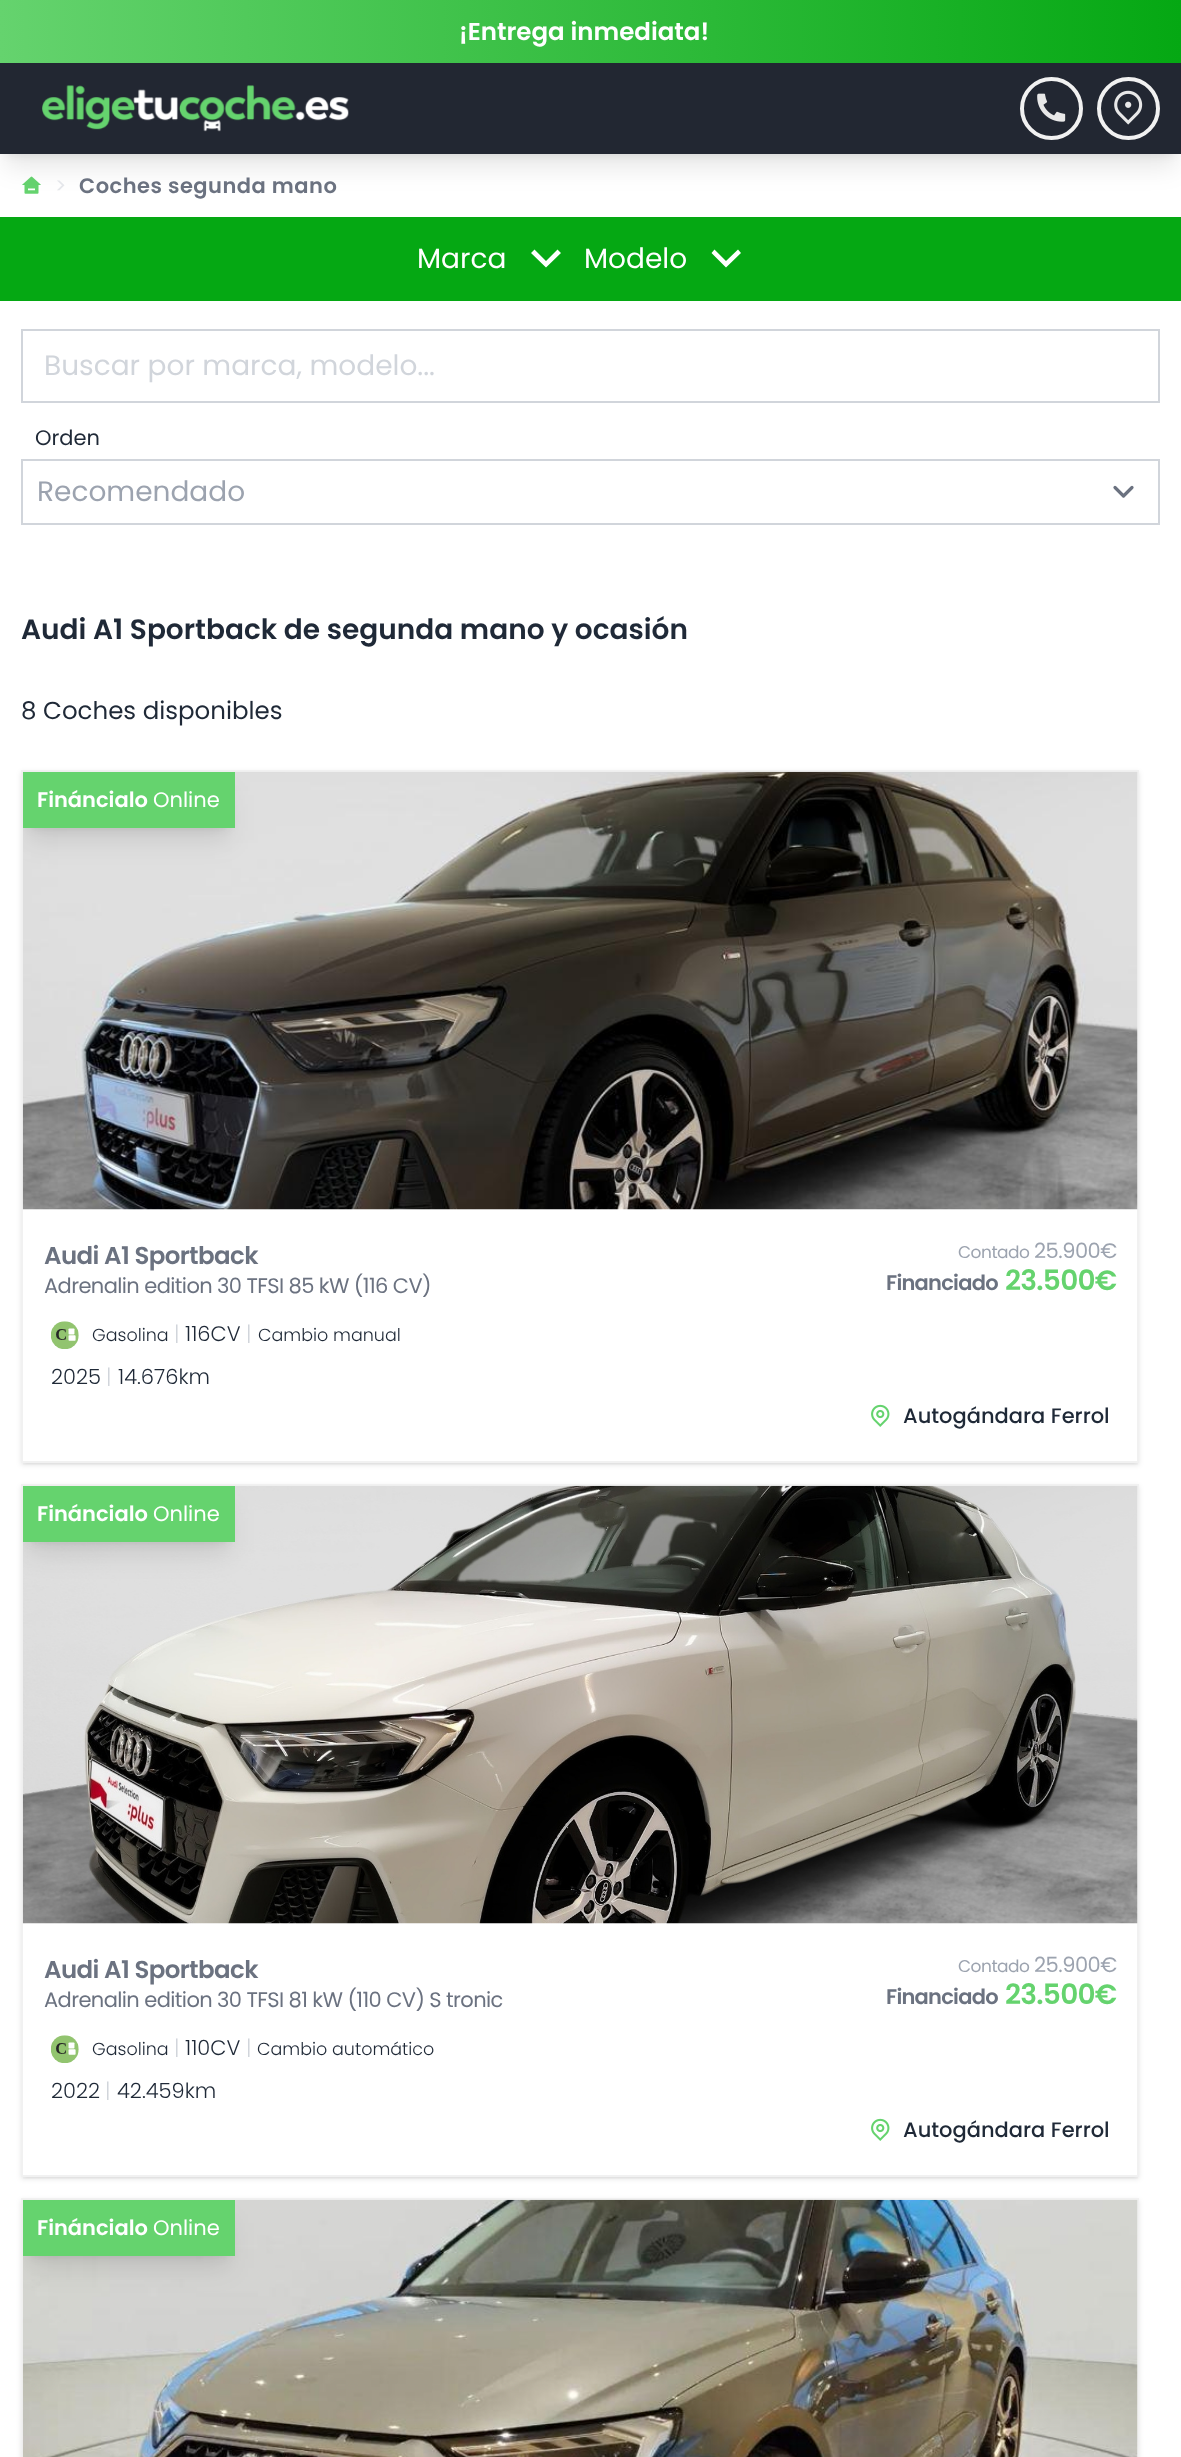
<?xml version="1.0" encoding="UTF-8"?>
<svg xmlns="http://www.w3.org/2000/svg" width="1181" height="2457">
    <defs>
        <linearGradient id="g1" gradientUnits="userSpaceOnUse" x1="0" y1="32" x2="1181" y2="31"><stop offset="0" stop-color="#65D36E"/><stop offset="1" stop-color="#05A813"/></linearGradient>
        <filter id="blur1" x="-50%" y="-200%" width="200%" height="500%"><feGaussianBlur stdDeviation="5"/></filter>
        <filter id="blur2" x="-50%" y="-200%" width="200%" height="500%"><feGaussianBlur stdDeviation="13"/></filter>
        <clipPath id="clip1"><rect x="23" y="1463" width="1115" height="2"/></clipPath>
        <filter id="blur3" x="-50%" y="-200%" width="200%" height="500%"><feGaussianBlur stdDeviation="2"/></filter>
        <clipPath id="clip2"><path d="M 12 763 H 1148 V 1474 H 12 Z M 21 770 H 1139 V 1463 H 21 Z" clip-rule="evenodd"/></clipPath>
        <filter id="blur4" x="-50%" y="-200%" width="200%" height="500%"><feGaussianBlur stdDeviation="2.5"/></filter>
        <clipPath id="clip3"><rect x="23" y="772" width="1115" height="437"/></clipPath>
        <clipPath id="clip4"><rect x="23" y="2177" width="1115" height="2"/></clipPath>
        <clipPath id="clip5"><path d="M 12 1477 H 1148 V 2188 H 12 Z M 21 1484 H 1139 V 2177 H 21 Z" clip-rule="evenodd"/></clipPath>
        <clipPath id="clip6"><rect x="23" y="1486" width="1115" height="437"/></clipPath>
        <clipPath id="clip7"><rect x="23" y="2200" width="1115" height="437"/></clipPath>
    </defs>
    <rect width="100%" height="100%" fill="#FFFFFF"/>
    <rect x="0" y="0" width="1181" height="63" fill="url(#g1)"/>
    <text x="459" y="40" font-family="Poppins" font-size="24.5" font-weight="600" fill="#FFFFFF">¡Entrega inmediata!</text>
    <rect x="7" y="77" width="1167" height="77" fill="#000000" fill-opacity="0.1" filter="url(#blur1)"/>
    <image x="22" y="176" width="19" height="18" href="img_04.png"/>
    <rect x="5" y="86" width="1171" height="80" fill="#000000" fill-opacity="0.1" filter="url(#blur2)"/>
    <rect x="0" y="63" width="1181" height="91" fill="#222732"/>
    <image x="42" y="85" width="307" height="47" href="img_01.png"/>
    <circle cx="1051.5" cy="108.5" r="29.5" fill="none" stroke="#F1F1F1" stroke-width="4"/>
    <image x="1037" y="93" width="29" height="29" href="img_02.png"/>
    <circle cx="1128.5" cy="108.5" r="29.5" fill="none" stroke="#F1F1F1" stroke-width="4"/>
    <image x="1114" y="90" width="29" height="35" href="img_03.png"/>
    <text x="55" y="193" font-family="Poppins" font-size="21" fill="#E5E7EB">&gt;</text>
    <text x="79" y="193" font-family="Poppins" font-size="21" font-weight="600" letter-spacing="0.5" fill="#6B7280">Coches segunda mano</text>
    <rect x="0" y="217" width="1181" height="84" fill="#05A813"/>
    <text x="417" y="268" font-family="Poppins" font-size="28" fill="#FFFFFF">Marca</text>
    <path d="M 546 261 L 557.5 249.5 L 561 253 L 546 267.5 L 531 253 L 534.5 249.5 Z" fill="#FFFFFF"/>
    <text x="584" y="268" font-family="Poppins" font-size="28" fill="#FFFFFF">Modelo</text>
    <path d="M 726 261 L 738 249.5 L 741 253 L 726 267.5 L 711.5 253 L 714.5 249.5 Z" fill="#FFFFFF"/>
    <rect x="22" y="330" width="1137" height="72" fill="none" stroke="#D1D5DB" stroke-width="2"/>
    <text x="44" y="375" font-family="Poppins" font-size="28" fill="#D1D5DB">Buscar por marca, modelo...</text>
    <text x="35" y="445" font-family="Poppins" font-size="21" fill="#1F2937">Orden</text>
    <path d="M 1115 487.5 L 1123.5 496 L 1132 487.5" fill="none" stroke="#6B7280" stroke-width="3.2" stroke-linecap="round" stroke-linejoin="round"/>
    <rect x="22" y="460" width="1137" height="64" fill="none" stroke="#D1D5DB" stroke-width="2"/>
    <text x="37" y="501" font-family="Poppins" font-size="28" fill="#9CA3AF">Recomendado</text>
    <text x="21" y="639" font-family="Poppins" font-size="28" font-weight="600" fill="#1F2937">Audi A1 Sportback de segunda mano y ocasión</text>
    <text x="21" y="719" font-family="Poppins" font-size="24.5" fill="#1F2937">8 Coches disponibles</text>
    <g clip-path="url(#clip1)">
        <rect x="23" y="774" width="1115" height="689" fill="#000000" fill-opacity="0.1" filter="url(#blur3)"/>
    </g>
    <g clip-path="url(#clip2)">
        <rect x="21" y="772" width="1118" height="693" fill="#000000" fill-opacity="0.1" filter="url(#blur4)"/>
    </g>
    <rect x="22" y="771" width="1116" height="691" fill="none" stroke="#F1F1F1" stroke-width="2"/>
    <image x="22" y="771" width="1116" height="439" href="img_05.png"/>
    <rect x="30" y="786" width="198" height="42" fill="#000000" fill-opacity="0.1" filter="url(#blur1)"/>
    <g clip-path="url(#clip3)">
        <rect x="28" y="795" width="201" height="45" fill="#000000" fill-opacity="0.1" filter="url(#blur2)"/>
    </g>
    <rect x="23" y="772" width="212" height="56" fill="#65D36E"/>
    <text x="37" y="807" font-family="Poppins" font-size="21" font-weight="600" fill="#FFFFFF">Fináncialo</text>
    <text x="153" y="807" font-family="Poppins" font-size="21" fill="#FFFFFF">Online</text>
    <text x="44" y="1264" font-family="Poppins" font-size="24.5" font-weight="600" letter-spacing="-0.6" fill="#6B7280">Audi A1 Sportback</text>
    <text x="44" y="1293" font-family="Poppins" font-size="21" letter-spacing="-0.6" fill="#6B7280">Adrenalin edition 30 TFSI 85 kW (116 CV)</text>
    <text x="958" y="1258" font-family="Poppins" font-size="17" letter-spacing="-0.5" fill="#9CA3AF">Contado</text>
    <text x="1034" y="1258" font-family="Poppins" font-size="21" letter-spacing="-0.5" fill="#9CA3AF">25.900€</text>
    <text x="886" y="1290" font-family="Poppins" font-size="21" font-weight="600" letter-spacing="-0.75" fill="#6B7280">Financiado</text>
    <text x="1005" y="1290" font-family="Poppins" font-size="28" font-weight="600" letter-spacing="-0.75" fill="#65D36E">23.500€</text>
    <image x="51" y="1321" width="28" height="28" href="img_06.png"/>
    <text x="92" y="1341" font-family="Poppins" font-size="17.5" font-weight="300" fill="#1F2937">Gasolina</text>
    <text x="174" y="1341" font-family="Poppins" font-size="21" font-weight="300" fill="#D1D5DB">|</text>
    <text x="185" y="1341" font-family="Poppins" font-size="21" font-weight="300" fill="#1F2937">116CV</text>
    <text x="246" y="1341" font-family="Poppins" font-size="21" font-weight="300" fill="#D1D5DB">|</text>
    <text x="258" y="1341" font-family="Poppins" font-size="17.5" font-weight="300" fill="#1F2937">Cambio manual</text>
    <text x="51" y="1384" font-family="Poppins" font-size="21" font-weight="300" fill="#1F2937">2025</text>
    <text x="106" y="1384" font-family="Poppins" font-size="21" font-weight="300" fill="#D1D5DB">|</text>
    <text x="118" y="1384" font-family="Poppins" font-size="21" font-weight="300" fill="#1F2937">14.676km</text>
    <image x="871" y="1404" width="19" height="23" href="img_07.png"/>
    <text x="903" y="1423" font-family="Poppins" font-size="21" font-weight="500" fill="#1F2937">Autogándara Ferrol</text>
    <g clip-path="url(#clip4)">
        <rect x="23" y="1488" width="1115" height="689" fill="#000000" fill-opacity="0.1" filter="url(#blur3)"/>
    </g>
    <g clip-path="url(#clip5)">
        <rect x="21" y="1486" width="1118" height="693" fill="#000000" fill-opacity="0.1" filter="url(#blur4)"/>
    </g>
    <rect x="22" y="1485" width="1116" height="691" fill="none" stroke="#F1F1F1" stroke-width="2"/>
    <image x="22" y="1485" width="1116" height="439" href="img_08.png"/>
    <rect x="30" y="1500" width="198" height="42" fill="#000000" fill-opacity="0.1" filter="url(#blur1)"/>
    <g clip-path="url(#clip6)">
        <rect x="28" y="1509" width="201" height="45" fill="#000000" fill-opacity="0.1" filter="url(#blur2)"/>
    </g>
    <rect x="23" y="1486" width="212" height="56" fill="#65D36E"/>
    <text x="37" y="1521" font-family="Poppins" font-size="21" font-weight="600" fill="#FFFFFF">Fináncialo</text>
    <text x="153" y="1521" font-family="Poppins" font-size="21" fill="#FFFFFF">Online</text>
    <text x="44" y="1978" font-family="Poppins" font-size="24.5" font-weight="600" letter-spacing="-0.6" fill="#6B7280">Audi A1 Sportback</text>
    <text x="44" y="2007" font-family="Poppins" font-size="21" letter-spacing="-0.6" fill="#6B7280">Adrenalin edition 30 TFSI 81 kW (110 CV) S tronic</text>
    <text x="958" y="1972" font-family="Poppins" font-size="17" letter-spacing="-0.5" fill="#9CA3AF">Contado</text>
    <text x="1034" y="1972" font-family="Poppins" font-size="21" letter-spacing="-0.5" fill="#9CA3AF">25.900€</text>
    <text x="886" y="2004" font-family="Poppins" font-size="21" font-weight="600" letter-spacing="-0.75" fill="#6B7280">Financiado</text>
    <text x="1005" y="2004" font-family="Poppins" font-size="28" font-weight="600" letter-spacing="-0.75" fill="#65D36E">23.500€</text>
    <image x="51" y="2035" width="28" height="28" href="img_06.png"/>
    <text x="92" y="2055" font-family="Poppins" font-size="17.5" font-weight="300" fill="#1F2937">Gasolina</text>
    <text x="174" y="2055" font-family="Poppins" font-size="21" font-weight="300" fill="#D1D5DB">|</text>
    <text x="185" y="2055" font-family="Poppins" font-size="21" font-weight="300" fill="#1F2937">110CV</text>
    <text x="246" y="2055" font-family="Poppins" font-size="21" font-weight="300" fill="#D1D5DB">|</text>
    <text x="257" y="2055" font-family="Poppins" font-size="17.5" font-weight="300" fill="#1F2937">Cambio automático</text>
    <text x="51" y="2098" font-family="Poppins" font-size="21" font-weight="300" fill="#1F2937">2022</text>
    <text x="105" y="2098" font-family="Poppins" font-size="21" font-weight="300" fill="#D1D5DB">|</text>
    <text x="117" y="2098" font-family="Poppins" font-size="21" font-weight="300" fill="#1F2937">42.459km</text>
    <image x="871" y="2118" width="19" height="23" href="img_07.png"/>
    <text x="903" y="2137" font-family="Poppins" font-size="21" font-weight="500" fill="#1F2937">Autogándara Ferrol</text>
    <rect x="21" y="2200" width="1118" height="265" fill="#000000" fill-opacity="0.1" filter="url(#blur4)"/>
    <rect x="22" y="2199" width="1116" height="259" fill="none" stroke="#F1F1F1" stroke-width="2"/>
    <image x="22" y="2199" width="1116" height="258" href="img_09.png"/>
    <rect x="30" y="2214" width="198" height="42" fill="#000000" fill-opacity="0.1" filter="url(#blur1)"/>
    <g clip-path="url(#clip7)">
        <rect x="28" y="2223" width="201" height="45" fill="#000000" fill-opacity="0.1" filter="url(#blur2)"/>
    </g>
    <rect x="23" y="2200" width="212" height="56" fill="#65D36E"/>
    <text x="37" y="2235" font-family="Poppins" font-size="21" font-weight="600" fill="#FFFFFF">Fináncialo</text>
    <text x="153" y="2235" font-family="Poppins" font-size="21" fill="#FFFFFF">Online</text>
</svg>
